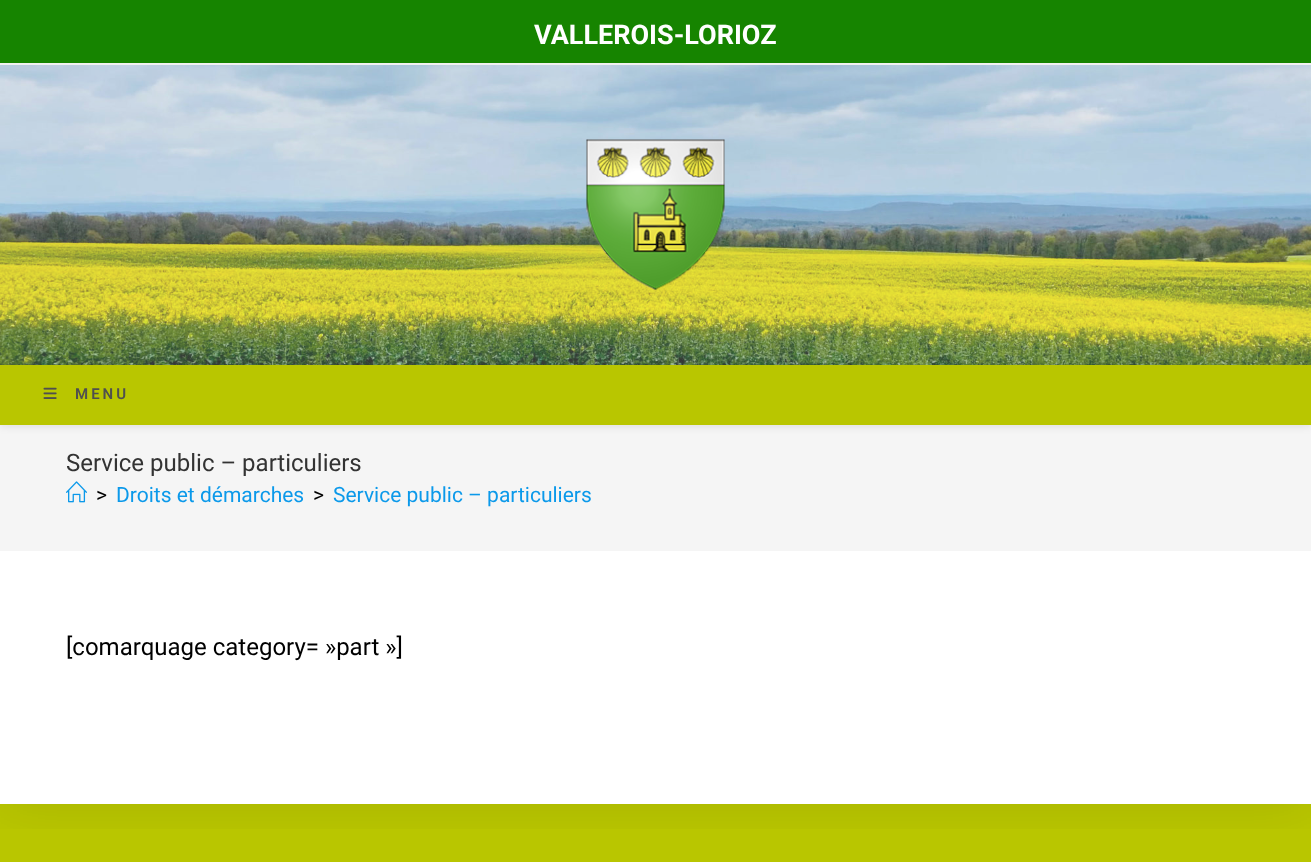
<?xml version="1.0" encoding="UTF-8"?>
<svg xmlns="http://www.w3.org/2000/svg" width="1311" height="862">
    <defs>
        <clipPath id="clip1"><rect x="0" y="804" width="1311" height="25"/></clipPath>
        <filter id="blur1" x="-50%" y="-200%" width="200%" height="500%"><feGaussianBlur stdDeviation="30"/></filter>
        <filter id="blur2" x="-50%" y="-200%" width="200%" height="500%"><feGaussianBlur stdDeviation="4"/></filter>
    </defs>
    <rect width="100%" height="100%" fill="#FFFFFF"/>
    <rect x="0" y="0" width="1311" height="63" fill="#168400"/>
    <rect x="0" y="63" width="1311" height="2" fill="#F1F1F1"/>
    <text x="534" y="44" font-family="Roboto" font-size="27" font-weight="700" fill="#FFFFFF">VALLEROIS-LORIOZ</text>
    <rect x="0" y="804" width="1311" height="58" fill="#B9C600"/>
    <g clip-path="url(#clip1)">
        <rect x="0" y="425" width="1311" height="379" fill="#000000" fill-opacity="0.1" filter="url(#blur1)"/>
    </g>
    <image x="0" y="65" width="1311" height="300" href="img_01.png"/>
    <rect x="0" y="65" width="1311" height="300" fill="#EFEFEF" fill-opacity="0.22"/>
    <image x="586" y="139" width="139" height="151" href="img_02.png"/>
    <rect x="0" y="425" width="1311" height="126" fill="#F5F5F5"/>
    <rect x="0" y="366" width="1311" height="60" fill="#000000" fill-opacity="0.1" filter="url(#blur2)"/>
    <rect x="0" y="365" width="1311" height="60" fill="#B9C600"/>
    <image x="43" y="387" width="14" height="12" href="img_03.png"/>
    <text x="75" y="399" font-family="Roboto" font-size="15" font-weight="600" letter-spacing="3" fill="#4F4F4F">MENU</text>
    <text x="66" y="471" font-family="Roboto" font-size="24" fill="#333333">Service public – particuliers</text>
    <image x="66" y="481" width="21" height="22" href="img_04.png"/>
    <text x="96" y="502" font-family="Roboto" font-size="21" fill="#000000">&gt;</text>
    <text x="116" y="502" font-family="Roboto" font-size="21" fill="#0B99EA">Droits et démarches</text>
    <text x="313" y="502" font-family="Roboto" font-size="21" fill="#000000">&gt;</text>
    <text x="333" y="502" font-family="Roboto" font-size="21" fill="#0B99EA">Service public – particuliers</text>
    <text x="66" y="655" font-family="Roboto" font-size="24" fill="#000000">[comarquage category= »part »]</text>
</svg>
